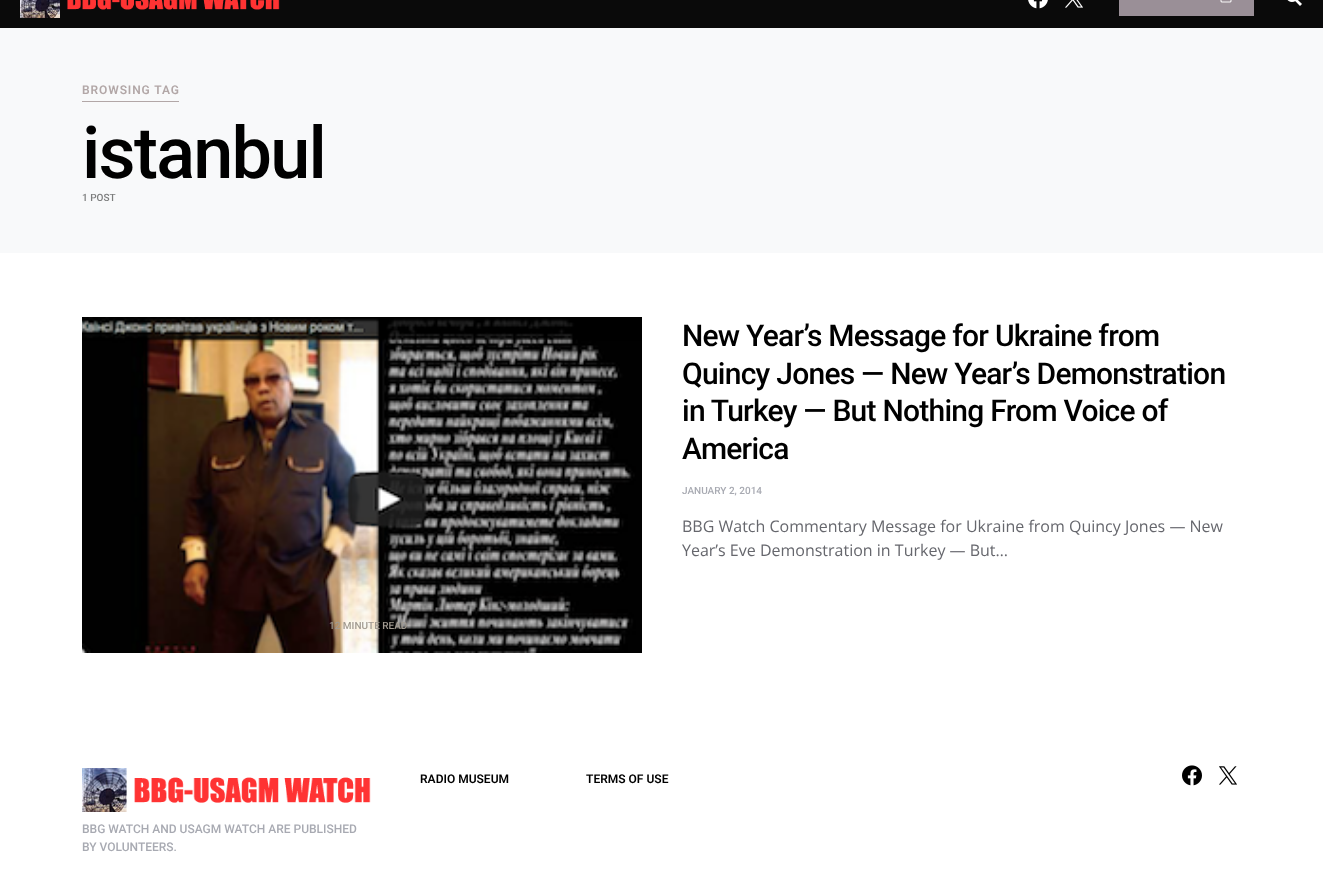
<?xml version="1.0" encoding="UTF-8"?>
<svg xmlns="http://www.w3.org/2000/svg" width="1323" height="893">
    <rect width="100%" height="100%" fill="#FFFFFF"/>
    <rect x="0" y="0" width="1323" height="28" fill="#0A0A0A"/>
    <image x="20" y="0" width="260" height="18" href="img_01.png"/>
    <image x="1028" y="0" width="20" height="9" href="img_02.png"/>
    <image x="1065" y="0" width="18" height="8" href="img_03.png"/>
    <rect x="1119" y="0" width="135" height="16" fill="#9A8F97"/>
    <image x="1220" y="0" width="12" height="3" href="img_04.png"/>
    <image x="1287" y="0" width="15" height="6" href="img_05.png"/>
    <rect x="0" y="28" width="1323" height="225" fill="#F8F9FA"/>
    <text x="82" y="94" font-family="Roboto" font-size="12" font-weight="600" letter-spacing="0.9" fill="#B2A7A7">BROWSING TAG</text>
    <rect x="82" y="101" width="97" height="1" fill="#B2A7A7"/>
    <text x="82" y="178" font-family="Roboto" font-size="72" font-weight="500" letter-spacing="-1.75" fill="#000000">istanbul</text>
    <text x="82" y="201" font-family="Roboto" font-size="10" font-weight="500" fill="#7C7D7D">1 POST</text>
    <text font-family="Roboto" font-size="30" font-weight="500" letter-spacing="-0.75" fill="#000000">
        <tspan x="682" y="346">New Year’s Message for Ukraine from</tspan>
        <tspan x="682" y="384">Quincy Jones — New Year’s Demonstration</tspan>
        <tspan x="682" y="421">in Turkey — But Nothing From Voice of</tspan>
        <tspan x="682" y="459">America</tspan>
    </text>
    <text x="682" y="494" font-family="Roboto" font-size="10" font-weight="500" fill="#A8AAB2">JANUARY 2, 2014</text>
    <text font-family="Open Sans" font-size="16" fill="#66676D">
        <tspan x="682" y="532">BBG Watch Commentary Message for Ukraine from Quincy Jones — New</tspan>
        <tspan x="682" y="556">Year’s Eve Demonstration in Turkey — But…</tspan>
    </text>
    <image x="82" y="317" width="560" height="336" href="img_06.png"/>
    <text x="329" y="629" font-family="Roboto" font-size="10" font-weight="500" fill="#A19A90">12 MINUTE READ</text>
    <text x="420" y="783" font-family="Roboto" font-size="12" font-weight="600" fill="#000000">RADIO MUSEUM</text>
    <text x="586" y="783" font-family="Roboto" font-size="12" font-weight="600" fill="#000000">TERMS OF USE</text>
    <image x="1182" y="765" width="20" height="21" href="img_07.png"/>
    <image x="1219" y="766" width="18" height="19" href="img_08.png"/>
    <image x="82" y="768" width="289" height="44" href="img_09.png"/>
    <text font-family="Roboto" font-size="12" font-weight="500" fill="#A8AAB2">
        <tspan x="82" y="833">BBG WATCH AND USAGM WATCH ARE PUBLISHED</tspan>
        <tspan x="82" y="851">BY VOLUNTEERS.</tspan>
    </text>
</svg>
